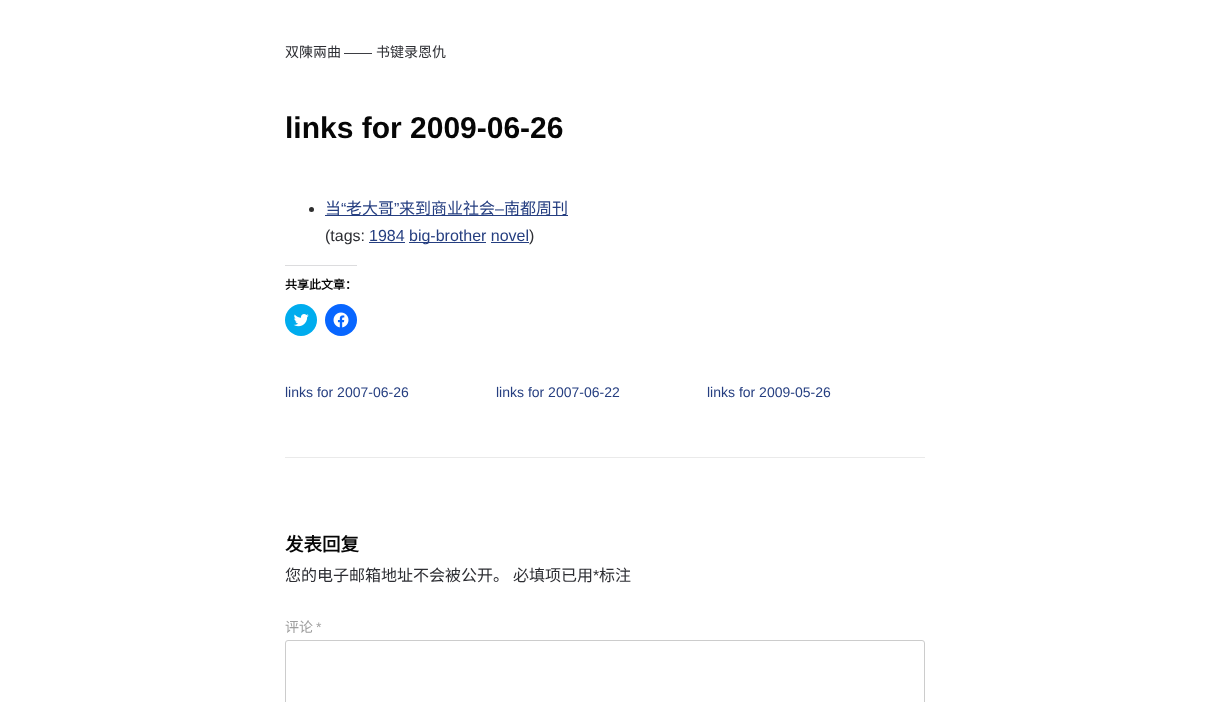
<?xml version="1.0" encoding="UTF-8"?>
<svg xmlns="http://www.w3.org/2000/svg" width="1209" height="702">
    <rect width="100%" height="100%" fill="#FFFFFF"/>
    <text x="285" y="57" font-family="Noto Sans CJK SC" font-size="14" fill="#2D2E33">双陳兩曲</text>
    <text x="344" y="57" font-family="Liberation Sans" font-size="14" fill="#2D2E33">——</text>
    <text x="376" y="57" font-family="Noto Sans CJK SC" font-size="14" fill="#2D2E33">书键录恩仇</text>
    <text x="285" y="138" font-family="Liberation Sans" font-size="30" font-weight="700" fill="#060606">links for 2009-06-26</text>
    <circle cx="311.5" cy="209.5" r="2.5" fill="#2F2F2F"/>
    <rect x="325" y="215" width="243" height="1" fill="#253E80"/>
    <text x="325" y="214" font-family="Noto Sans CJK SC" font-size="16" fill="#253E80">当</text>
    <text x="341" y="214" font-family="Liberation Sans" font-size="16" fill="#253E80">“</text>
    <text x="346" y="214" font-family="Noto Sans CJK SC" font-size="16" fill="#253E80">老大哥</text>
    <text x="394" y="214" font-family="Liberation Sans" font-size="16" fill="#253E80">”</text>
    <text x="399" y="214" font-family="Noto Sans CJK SC" font-size="16" fill="#253E80">来到商业社会</text>
    <text x="504" y="214" font-family="Noto Sans CJK SC" font-size="16" fill="#253E80">南都周刊</text>
    <text x="495" y="214" font-family="Liberation Sans" font-size="16" fill="#253E80">–</text>
    <text x="325" y="241" font-family="Liberation Sans" font-size="16" fill="#2D2E33">(tags:</text>
    <text x="369" y="241" font-family="Liberation Sans" font-size="16" fill="#253E80">1984</text>
    <rect x="369" y="242" width="36" height="1" fill="#253E80"/>
    <rect x="409" y="242" width="77" height="1" fill="#253E80"/>
    <text x="409" y="241" font-family="Liberation Sans" font-size="16" fill="#253E80">big-brother novel</text>
    <text x="529" y="241" font-family="Liberation Sans" font-size="16" fill="#2D2E33">)</text>
    <rect x="491" y="242" width="38" height="1" fill="#253E80"/>
    <rect x="285" y="265" width="72" height="1" fill="#DCDCDE"/>
    <text x="285" y="289" font-family="Noto Sans CJK SC" font-size="12" font-weight="700" fill="#060606">共享此文章：</text>
    <circle cx="301" cy="320" r="16" fill="#00ACEE"/>
    <image x="293" y="314" width="16" height="13" href="img_01.png"/>
    <circle cx="341" cy="320" r="16" fill="#0866FF"/>
    <image x="333" y="312" width="16" height="16" href="img_02.png"/>
    <text x="285" y="397" font-family="Liberation Sans" font-size="14" fill="#253E80">links for 2007-06-26</text>
    <text x="496" y="397" font-family="Liberation Sans" font-size="14" fill="#253E80">links for 2007-06-22</text>
    <text x="707" y="397" font-family="Liberation Sans" font-size="14" fill="#253E80">links for 2009-05-26</text>
    <rect x="285" y="457" width="640" height="1" fill="#EAEAEA"/>
    <text x="285" y="551" font-family="Noto Sans CJK SC" font-size="18.5" font-weight="700" fill="#060606">发表回复</text>
    <text x="285" y="581" font-family="Noto Sans CJK SC" font-size="16" fill="#2D2E33">您的电子邮箱地址不会被公开。</text>
    <text x="513" y="581" font-family="Noto Sans CJK SC" font-size="16" fill="#2D2E33">必填项已用</text>
    <text x="593" y="581" font-family="Liberation Sans" font-size="16" fill="#2D2E33">*</text>
    <text x="599" y="581" font-family="Noto Sans CJK SC" font-size="16" fill="#2D2E33">标注</text>
    <text x="285" y="632" font-family="Noto Sans CJK SC" font-size="14" fill="#9E9E9E">评论</text>
    <text x="316" y="632" font-family="Liberation Sans" font-size="14" fill="#9E9E9E">*</text>
    <rect x="285.5" y="640.5" width="639" height="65" rx="2.5" fill="none" stroke="#CCCCCC"/>
</svg>
